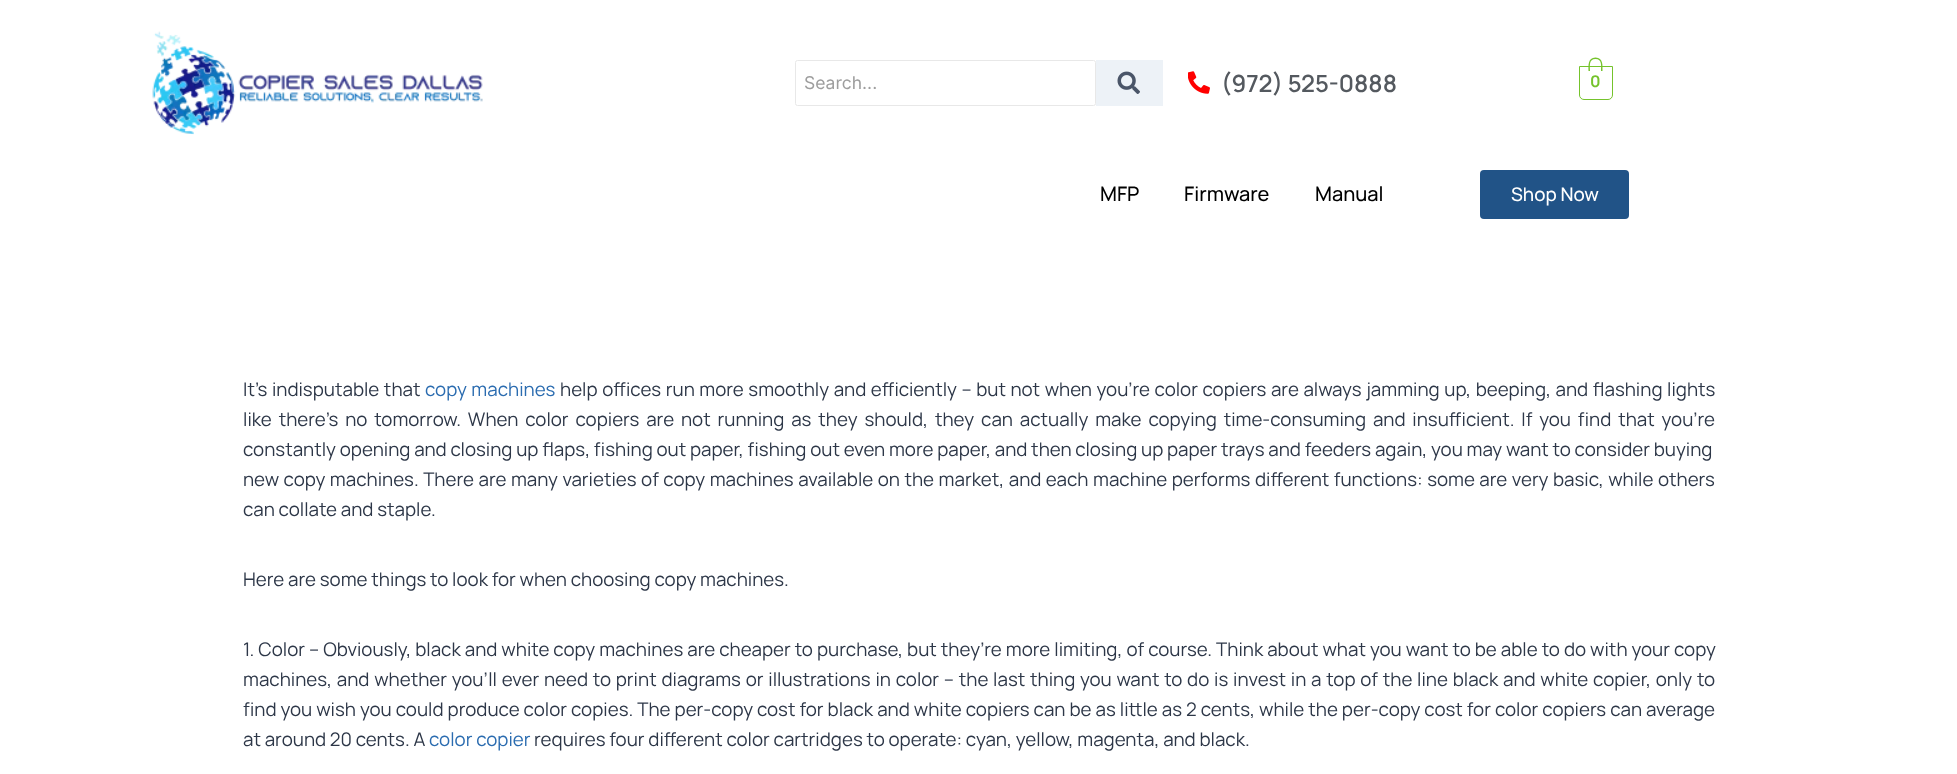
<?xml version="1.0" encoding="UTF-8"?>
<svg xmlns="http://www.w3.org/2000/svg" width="1957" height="774">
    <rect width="100%" height="100%" fill="#FFFFFF"/>
    <image x="152" y="31" width="331" height="104" href="img_01.png"/>
    <rect x="795.5" y="60.5" width="300" height="45" rx="2" fill="none" stroke="#E8E8E8"/>
    <text x="804" y="89" font-family="Inter" font-size="17.5" fill="#9E9E9E">Search...</text>
    <rect x="1096" y="60" width="67" height="46" fill="#EDF2F7"/>
    <image x="1117" y="71" width="23" height="23" href="img_02.png"/>
    <image x="1188" y="71" width="22" height="23" href="img_03.png"/>
    <text x="1221" y="92" font-family="Manrope" font-size="23.75" font-weight="600" fill="#54595F">(972) 525-0888</text>
    <path d="M 1579.5 66.5 H 1612.5 V 95 C 1612.5 97.5 1610.5 99.5 1608 99.5 H 1584 C 1581.5 99.5 1579.5 97.5 1579.5 95 Z" fill="none" stroke="#75C32C"/>
    <path d="M 1595.5 57.5 C 1603.5 57.5 1602.5 66 1602.5 71 H 1588.5 C 1588.5 66 1587.5 57.5 1595.5 57.5 Z M 1595.5 59 C 1602.5 59 1601 66.5 1601 71 H 1590 C 1590 66.5 1588.5 59 1595.5 59 Z" fill="#75C32C" fill-rule="evenodd"/>
    <text x="1590" y="87" font-family="Manrope" font-size="16" font-weight="700" fill="#75C32C">0</text>
    <text x="1100" y="201" font-family="Manrope" font-size="20" font-weight="500" fill="#000000">MFP</text>
    <text x="1184" y="201" font-family="Manrope" font-size="20" font-weight="500" fill="#000000">Firmware</text>
    <text x="1315" y="201" font-family="Manrope" font-size="20" font-weight="500" fill="#000000">Manual</text>
    <rect x="1480" y="170" width="149" height="49" rx="4" fill="#215387"/>
    <text x="1511" y="201" font-family="Manrope" font-size="18.75" font-weight="500" fill="#FFFFFF">Shop Now</text>
    <text x="243" y="396" word-spacing="0.8" font-family="Manrope" font-size="18.75" fill="#2D3748">It’s indisputable that</text>
    <text x="425" y="396" word-spacing="0.8" font-family="Manrope" font-size="18.75" fill="#2B6CB0">copy machines</text>
    <text x="560" y="396" word-spacing="0.8" font-family="Manrope" font-size="18.75" fill="#2D3748">help offices run more smoothly and efficiently – but not when you’re color copiers are always jamming up, beeping, and flashing lights</text>
    <text font-family="Manrope" font-size="18.75" fill="#2D3748">
        <tspan x="243" y="426" word-spacing="3.1">like there’s no tomorrow. When color copiers are not running as they should, they can actually make copying time-consuming and insufficient. If you find that you’re</tspan>
        <tspan x="243" y="456">constantly opening and closing up flaps, fishing out paper, fishing out even more paper, and then closing up paper trays and feeders again, you may want to consider buying</tspan>
        <tspan x="243" y="486" word-spacing="0.75">new copy machines. There are many varieties of copy machines available on the market, and each machine performs different functions: some are very basic, while others</tspan>
        <tspan x="243" y="516">can collate and staple.</tspan>
    </text>
    <text x="243" y="586" font-family="Manrope" font-size="18.75" fill="#2D3748">Here are some things to look for when choosing copy machines.</text>
    <text font-family="Manrope" font-size="18.75" fill="#2D3748">
        <tspan x="243" y="656" word-spacing="0.25">1. Color – Obviously, black and white copy machines are cheaper to purchase, but they’re more limiting, of course. Think about what you want to be able to do with your copy</tspan>
        <tspan x="243" y="686" word-spacing="1">machines, and whether you’ll ever need to print diagrams or illustrations in color – the last thing you want to do is invest in a top of the line black and white copier, only to</tspan>
        <tspan x="243" y="716" word-spacing="0.25">find you wish you could produce color copies. The per-copy cost for black and white copiers can be as little as 2 cents, while the per-copy cost for color copiers can average</tspan>
        <tspan x="243" y="746">at around 20 cents. A</tspan>
    </text>
    <text x="429" y="746" font-family="Manrope" font-size="18.75" fill="#2B6CB0">color copier</text>
    <text x="534" y="746" font-family="Manrope" font-size="18.75" fill="#2D3748">requires four different color cartridges to operate: cyan, yellow, magenta, and black.</text>
</svg>
